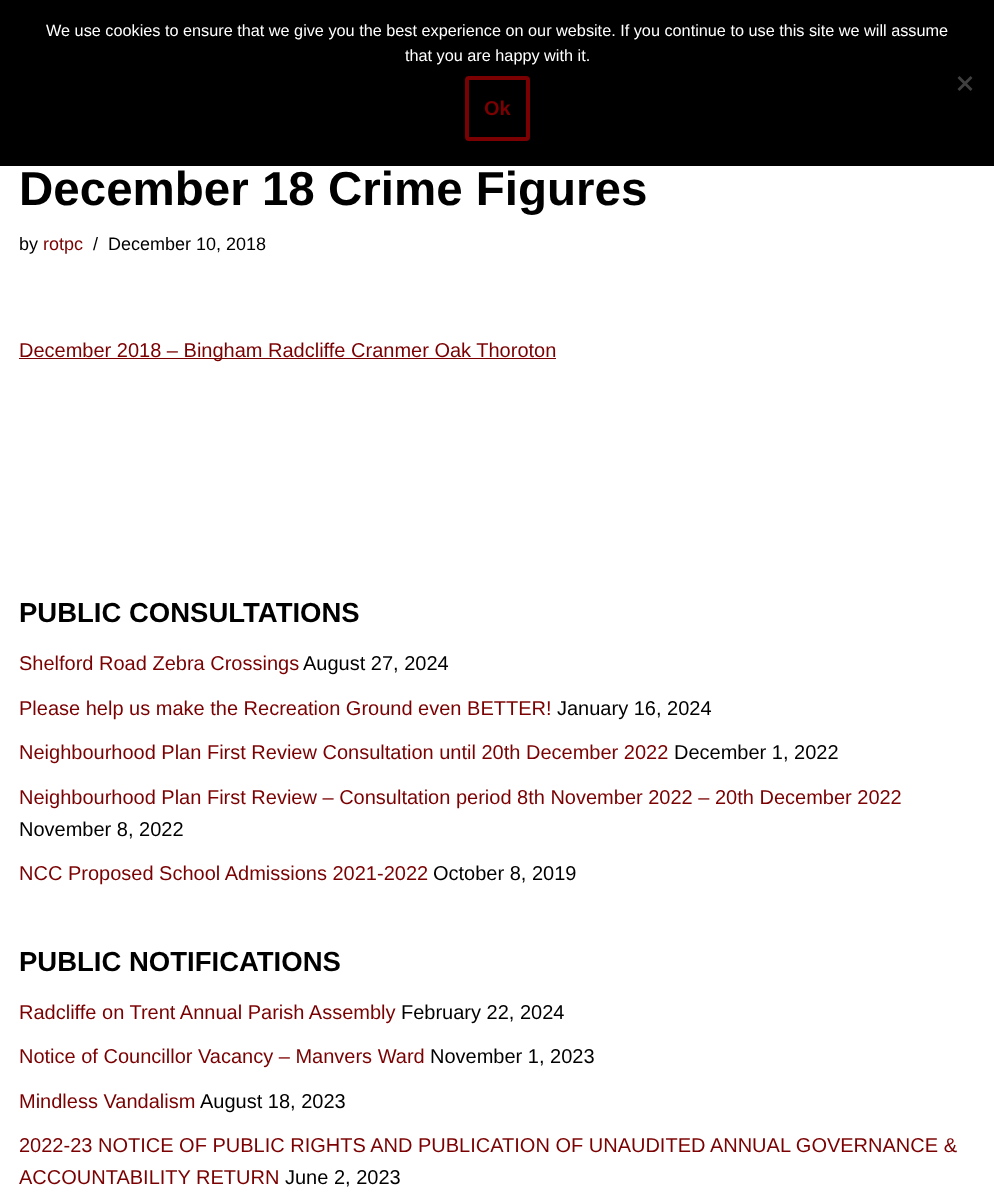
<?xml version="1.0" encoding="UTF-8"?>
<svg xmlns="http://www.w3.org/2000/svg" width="994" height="1195">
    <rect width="100%" height="100%" fill="#FFFFFF"/>
    <rect x="0" y="0" width="994" height="166" fill="#000000"/>
    <text x="46" y="36" font-family="Liberation Sans" font-size="16.25" fill="#FFFFFF">We use cookies to ensure that we give you the best experience on our website. If you continue to use this site we will assume</text>
    <text x="405" y="61" font-family="Liberation Sans" font-size="16.25" fill="#FFFFFF">that you are happy with it.</text>
    <path d="M 970.5 76 L 972.5 78 L 959.5 91 L 957.5 89 Z" fill="#404040"/>
    <path d="M 957.5 78 L 959.5 76 L 972.5 89 L 970.5 91 Z" fill="#404040"/>
    <rect x="467" y="78" width="61" height="61" rx="2" fill="none" stroke="#7A0002" stroke-width="4"/>
    <text x="484" y="115" font-family="Liberation Sans" font-size="20" font-weight="700" fill="#7A0002">Ok</text>
    <text x="19" y="205" font-family="Liberation Sans" font-size="47.5" font-weight="700" fill="#000000">December 18 Crime Figures</text>
    <text x="19" y="250" font-family="Liberation Sans" font-size="18" fill="#000000">by</text>
    <text x="43" y="250" font-family="Liberation Sans" font-size="18" fill="#7A0002">rotpc</text>
    <text x="93" y="250" font-family="Liberation Sans" font-size="18" fill="#000000">/</text>
    <text x="108" y="250" font-family="Liberation Sans" font-size="18" fill="#000000">December 10, 2018</text>
    <rect x="19" y="358" width="537" height="1" fill="#7A0002"/>
    <text x="19" y="357" font-family="Liberation Sans" font-size="20" fill="#7A0002">December 2018 – Bingham Radcliffe Cranmer Oak Thoroton</text>
    <text x="19" y="622" font-family="Liberation Sans" font-size="27.5" font-weight="700" fill="#000000">PUBLIC CONSULTATIONS</text>
    <text x="19" y="670" font-family="Liberation Sans" font-size="20" fill="#7A0002">Shelford Road Zebra Crossings</text>
    <text x="303" y="670" font-family="Liberation Sans" font-size="20" fill="#000000">August 27, 2024</text>
    <text x="19" y="715" font-family="Liberation Sans" font-size="20" fill="#7A0002">Please help us make the Recreation Ground even BETTER!</text>
    <text x="557" y="715" font-family="Liberation Sans" font-size="20" fill="#000000">January 16, 2024</text>
    <text x="19" y="759" font-family="Liberation Sans" font-size="20" fill="#7A0002">Neighbourhood Plan First Review Consultation until 20th December 2022</text>
    <text x="674" y="759" font-family="Liberation Sans" font-size="20" fill="#000000">December 1, 2022</text>
    <text x="19" y="804" font-family="Liberation Sans" font-size="20" fill="#7A0002">Neighbourhood Plan First Review – Consultation period 8th November 2022 – 20th December 2022</text>
    <text x="19" y="836" font-family="Liberation Sans" font-size="20" fill="#000000">November 8, 2022</text>
    <text x="19" y="880" font-family="Liberation Sans" font-size="20" fill="#7A0002">NCC Proposed School Admissions 2021-2022</text>
    <text x="433" y="880" font-family="Liberation Sans" font-size="20" fill="#000000">October 8, 2019</text>
    <text x="19" y="971" font-family="Liberation Sans" font-size="27.5" font-weight="700" fill="#000000">PUBLIC NOTIFICATIONS</text>
    <text x="19" y="1019" font-family="Liberation Sans" font-size="20" fill="#7A0002">Radcliffe on Trent Annual Parish Assembly</text>
    <text x="401" y="1019" font-family="Liberation Sans" font-size="20" fill="#000000">February 22, 2024</text>
    <text x="19" y="1063" font-family="Liberation Sans" font-size="20" fill="#7A0002">Notice of Councillor Vacancy – Manvers Ward</text>
    <text x="430" y="1063" font-family="Liberation Sans" font-size="20" fill="#000000">November 1, 2023</text>
    <text x="19" y="1108" font-family="Liberation Sans" font-size="20" fill="#7A0002">Mindless Vandalism</text>
    <text x="200" y="1108" font-family="Liberation Sans" font-size="20" fill="#000000">August 18, 2023</text>
    <text font-family="Liberation Sans" font-size="20" fill="#7A0002">
        <tspan x="19" y="1152">2022-23 NOTICE OF PUBLIC RIGHTS AND PUBLICATION OF UNAUDITED ANNUAL GOVERNANCE &amp;</tspan>
        <tspan x="19" y="1184">ACCOUNTABILITY RETURN</tspan>
    </text>
    <text x="285" y="1184" font-family="Liberation Sans" font-size="20" fill="#000000">June 2, 2023</text>
</svg>
